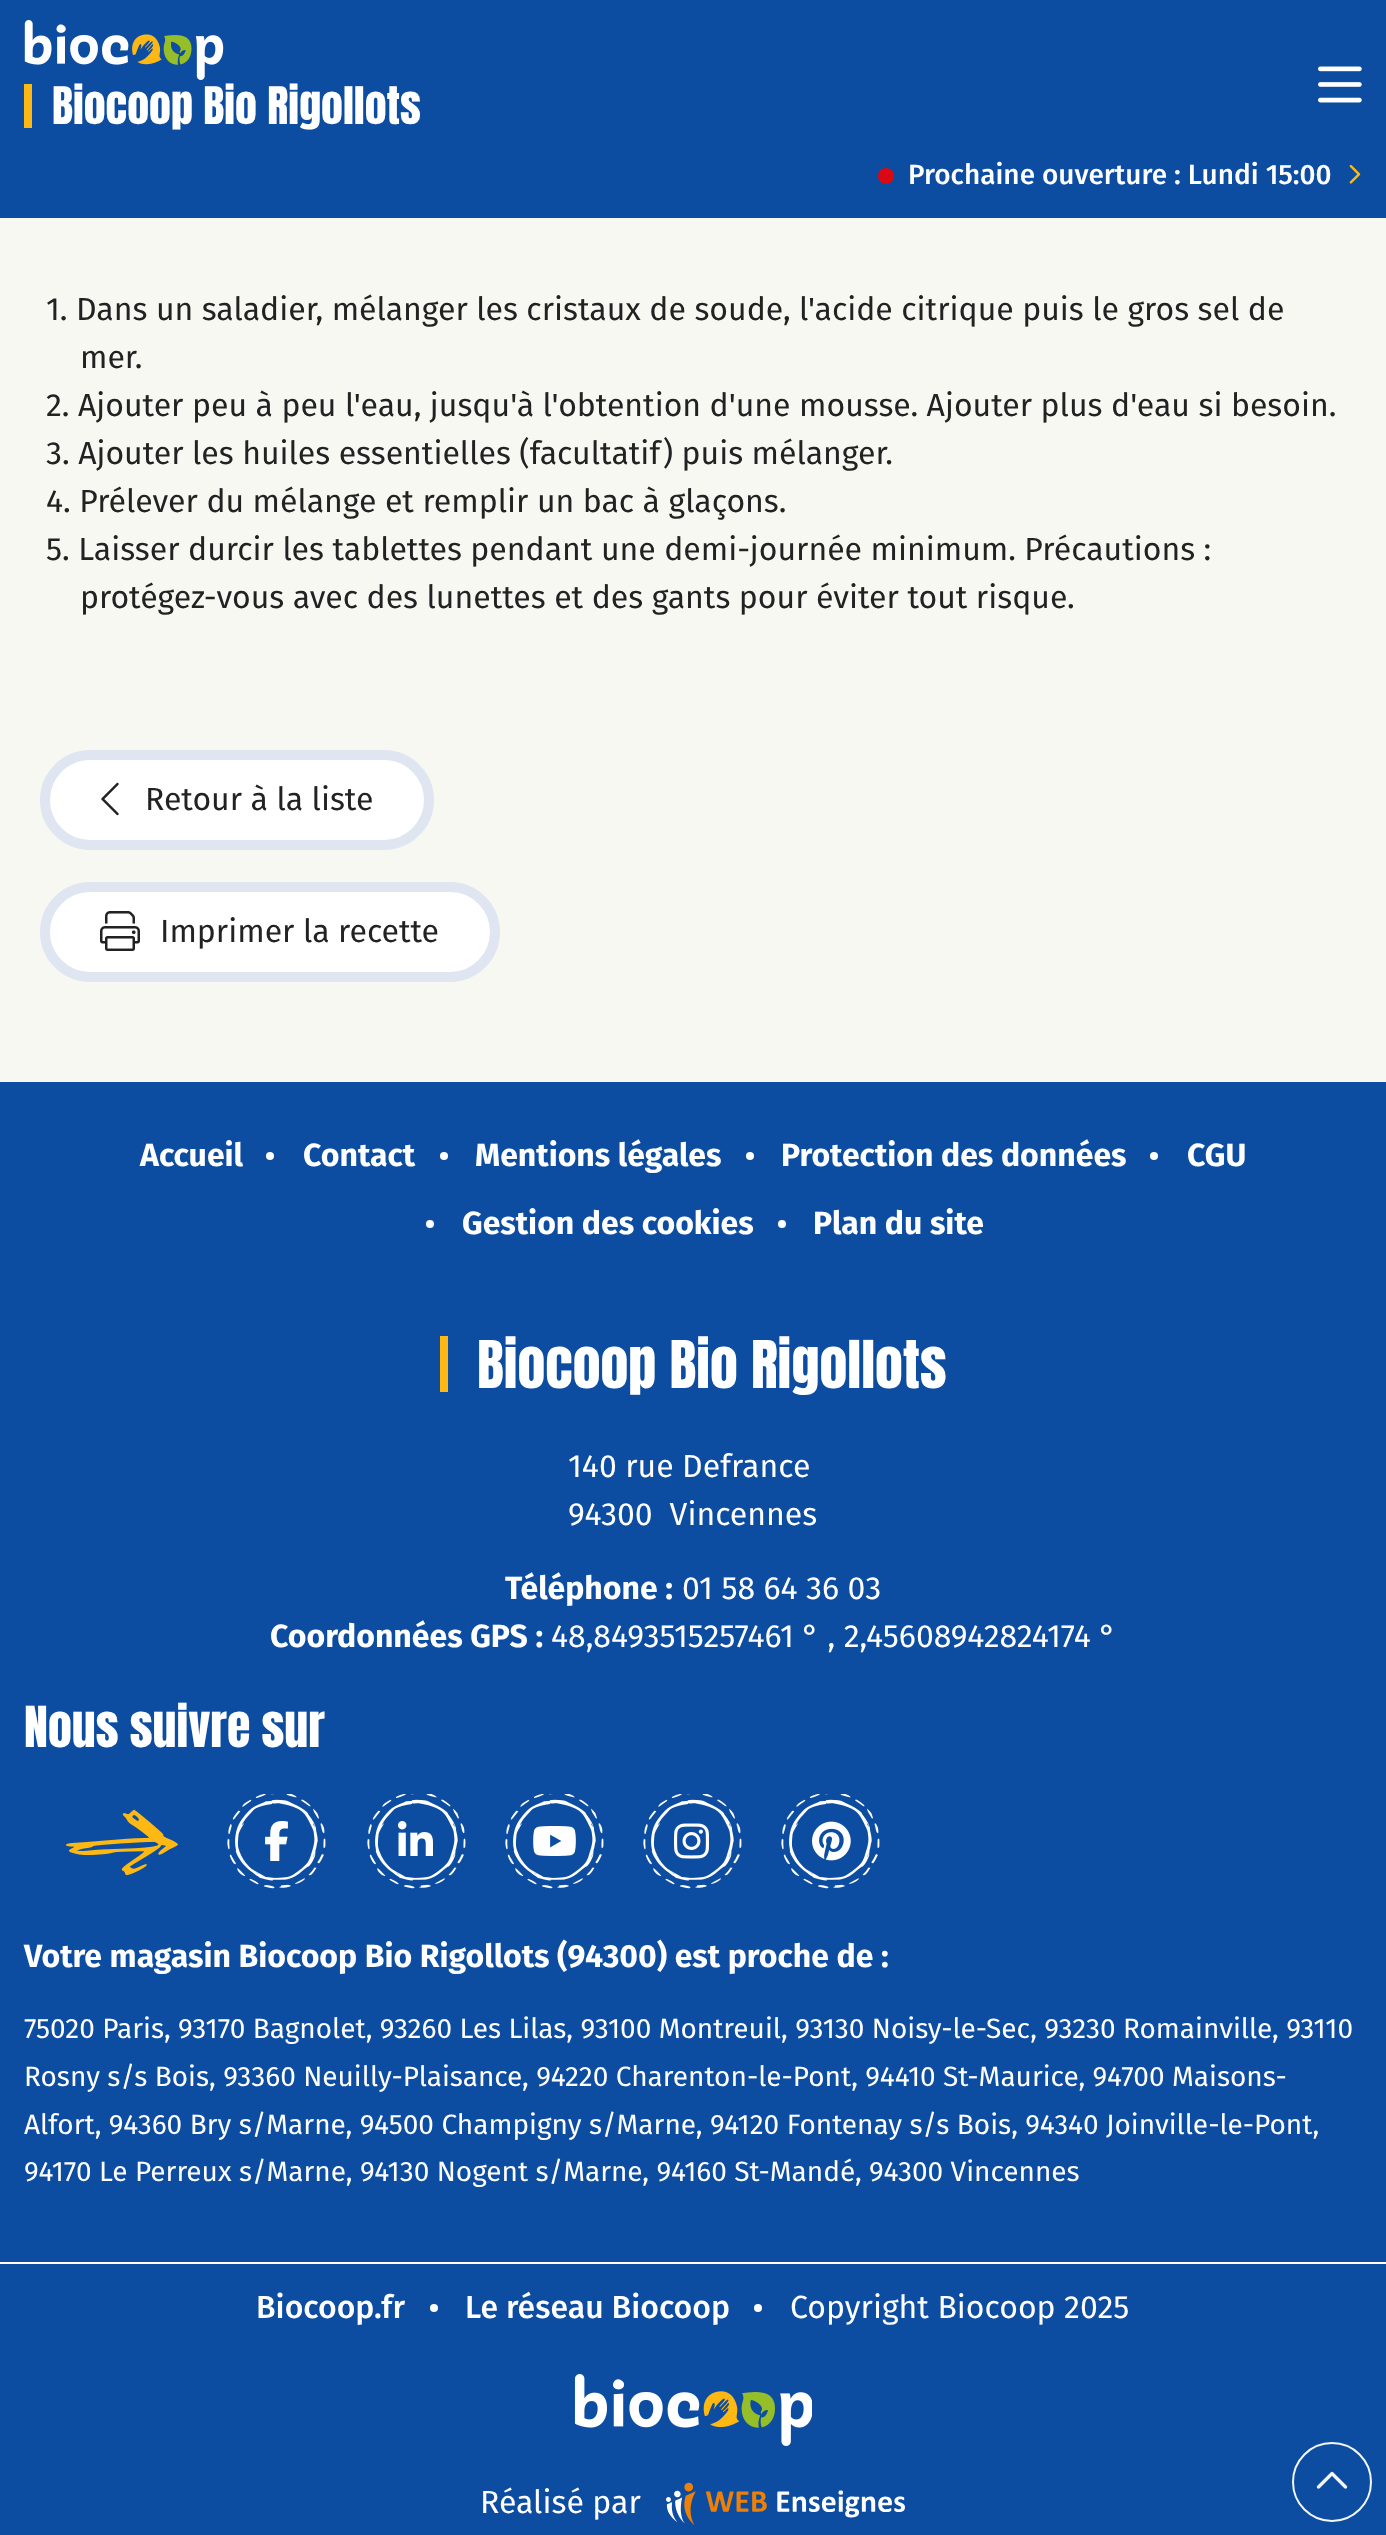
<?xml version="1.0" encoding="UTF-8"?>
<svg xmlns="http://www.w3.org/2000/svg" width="1386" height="2535">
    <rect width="100%" height="100%" fill="#0C4DA2"/>
    <image x="24" y="20" width="200" height="60" href="img_01.png"/>
    <rect x="24" y="84" width="8" height="44" fill="#FDB813"/>
    <text x="52" y="124" font-family="Anton" font-size="44" fill="#FFFFFF">Biocoop Bio Rigollots</text>
    <image x="1318" y="66" width="44" height="37" href="img_02.png"/>
    <circle cx="886" cy="176" r="8" fill="#DA0812"/>
    <text x="908" y="184" font-family="Fira Sans" font-size="28" font-weight="500" fill="#FFFFFF">Prochaine ouverture : Lundi 15:00</text>
    <image x="1349" y="164" width="12" height="20" href="img_03.png"/>
    <circle cx="1332" cy="2482" r="39" fill="none" stroke="#F3F6FA" stroke-width="2"/>
    <image x="1316" y="2471" width="32" height="18" href="img_04.png"/>
    <rect x="0" y="218" width="1386" height="864" fill="#F8F8F2"/>
    <text x="46" y="320" font-family="Fira Sans" font-size="32" fill="#222222">1. Dans un saladier, mélanger les cristaux de soude, l'acide citrique puis le gros sel de</text>
    <text x="80" y="368" font-family="Fira Sans" font-size="32" fill="#222222">mer.</text>
    <text font-family="Fira Sans" font-size="32" fill="#222222">
        <tspan x="46" y="416">2. Ajouter peu à peu l'eau, jusqu'à l'obtention d'une mousse. Ajouter plus d'eau si besoin.</tspan>
        <tspan x="46" y="464">3. Ajouter les huiles essentielles (facultatif) puis mélanger.</tspan>
        <tspan x="46" y="512">4. Prélever du mélange et remplir un bac à glaçons.</tspan>
        <tspan x="46" y="560">5. Laisser durcir les tablettes pendant une demi-journée minimum. Précautions :</tspan>
    </text>
    <text x="80" y="608" font-family="Fira Sans" font-size="32" fill="#222222">protégez-vous avec des lunettes et des gants pour éviter tout risque.</text>
    <rect x="45" y="755" width="384" height="90" rx="45" fill="#FFFFFF" stroke="#DFE5F1" stroke-width="10"/>
    <image x="101" y="782" width="18" height="34" href="img_05.png"/>
    <text x="145" y="810" font-family="Fira Sans" font-size="32" fill="#222222">Retour à la liste</text>
    <rect x="45" y="887" width="450" height="90" rx="45" fill="#FFFFFF" stroke="#DFE5F1" stroke-width="10"/>
    <image x="100" y="911" width="40" height="40" href="img_06.png"/>
    <text x="160" y="942" font-family="Fira Sans" font-size="32" fill="#222222">Imprimer la recette</text>
    <text x="140" y="1166" font-family="Fira Sans" font-size="32" font-weight="700" fill="#FFFFFF">Accueil</text>
    <circle cx="270" cy="1156" r="4" fill="#FFFFFF"/>
    <text x="303" y="1166" font-family="Fira Sans" font-size="32" font-weight="700" fill="#FFFFFF">Contact</text>
    <circle cx="444" cy="1156" r="4" fill="#FFFFFF"/>
    <text x="475" y="1166" font-family="Fira Sans" font-size="32" font-weight="700" fill="#FFFFFF">Mentions légales</text>
    <circle cx="750" cy="1156" r="4" fill="#FFFFFF"/>
    <text x="781" y="1166" font-family="Fira Sans" font-size="32" font-weight="700" fill="#FFFFFF">Protection des données</text>
    <circle cx="1154" cy="1156" r="4" fill="#FFFFFF"/>
    <text x="1187" y="1166" font-family="Fira Sans" font-size="32" font-weight="700" fill="#FFFFFF">CGU</text>
    <circle cx="430" cy="1224" r="4" fill="#FFFFFF"/>
    <text x="462" y="1234" font-family="Fira Sans" font-size="32" font-weight="700" fill="#FFFFFF">Gestion des cookies</text>
    <circle cx="782" cy="1224" r="4" fill="#FFFFFF"/>
    <text x="813" y="1234" font-family="Fira Sans" font-size="32" font-weight="700" fill="#FFFFFF">Plan du site</text>
    <rect x="440" y="1336" width="8" height="56" fill="#FDB813"/>
    <text x="477" y="1388" font-family="Anton" font-size="56" fill="#FFFFFF">Biocoop Bio Rigollots</text>
    <text font-family="Fira Sans" font-size="32" fill="#FFFFFF" xml:space="preserve"><tspan x="568" y="1477">140 rue Defrance</tspan><tspan x="568" y="1525">94300  Vincennes</tspan></text>
    <text x="505" y="1599" font-family="Fira Sans" font-size="32" font-weight="700" fill="#FFFFFF">Téléphone :</text>
    <text x="682" y="1599" font-family="Fira Sans" font-size="32" fill="#FFFFFF">01 58 64 36 03</text>
    <text x="270" y="1647" font-family="Fira Sans" font-size="32" font-weight="700" fill="#FFFFFF">Coordonnées GPS :</text>
    <text x="551" y="1647" font-family="Fira Sans" font-size="32" fill="#FFFFFF">48,8493515257461 ° , 2,45608942824174 °</text>
    <text x="24" y="1747" font-family="Anton" font-size="48" fill="#FFFFFF">Nous suivre sur</text>
    <image x="65" y="1809" width="113" height="67" href="img_07.png"/>
    <image x="227" y="1794" width="99" height="95" href="img_08.png"/>
    <image x="265" y="1821" width="23" height="40" href="img_09.png"/>
    <image x="367" y="1794" width="99" height="95" href="img_08.png"/>
    <image x="398" y="1821" width="35" height="35" href="img_10.png"/>
    <image x="505" y="1794" width="99" height="95" href="img_08.png"/>
    <image x="533" y="1826" width="43" height="30" href="img_11.png"/>
    <image x="643" y="1794" width="99" height="95" href="img_08.png"/>
    <image x="674" y="1823" width="35" height="36" href="img_12.png"/>
    <image x="781" y="1794" width="99" height="95" href="img_08.png"/>
    <image x="812" y="1821" width="39" height="40" href="img_13.png"/>
    <text x="24" y="1967" font-family="Fira Sans" font-size="32" font-weight="700" fill="#FFFFFF">Votre magasin Biocoop Bio Rigollots (94300) est proche de :</text>
    <text font-family="Fira Sans" font-size="28" fill="#FFFFFF">
        <tspan x="24" y="2038">75020 Paris, 93170 Bagnolet, 93260 Les Lilas, 93100 Montreuil, 93130 Noisy-le-Sec, 93230 Romainville, 93110</tspan>
        <tspan x="24" y="2086">Rosny s/s Bois, 93360 Neuilly-Plaisance, 94220 Charenton-le-Pont, 94410 St-Maurice, 94700 Maisons-</tspan>
        <tspan x="24" y="2134">Alfort, 94360 Bry s/Marne, 94500 Champigny s/Marne, 94120 Fontenay s/s Bois, 94340 Joinville-le-Pont,</tspan>
        <tspan x="24" y="2181">94170 Le Perreux s/Marne, 94130 Nogent s/Marne, 94160 St-Mandé, 94300 Vincennes</tspan>
    </text>
    <rect x="0" y="2262" width="1386" height="2" fill="#FFFFFF"/>
    <text x="256" y="2318" font-family="Fira Sans" font-size="32" font-weight="500" fill="#FFFFFF">Biocoop.fr</text>
    <circle cx="434" cy="2308" r="4" fill="#FFFFFF"/>
    <text x="465" y="2318" font-family="Fira Sans" font-size="32" font-weight="500" fill="#FFFFFF">Le réseau Biocoop</text>
    <circle cx="758" cy="2308" r="4" fill="#FFFFFF"/>
    <text x="790" y="2318" font-family="Fira Sans" font-size="32" fill="#FFFFFF">Copyright Biocoop 2025</text>
    <image x="574" y="2374" width="238" height="72" href="img_14.png"/>
    <text x="480" y="2513" font-family="Fira Sans" font-size="32" fill="#FFFFFF">Réalisé par</text>
    <image x="666" y="2482" width="239" height="43" href="img_15.png"/>
</svg>
